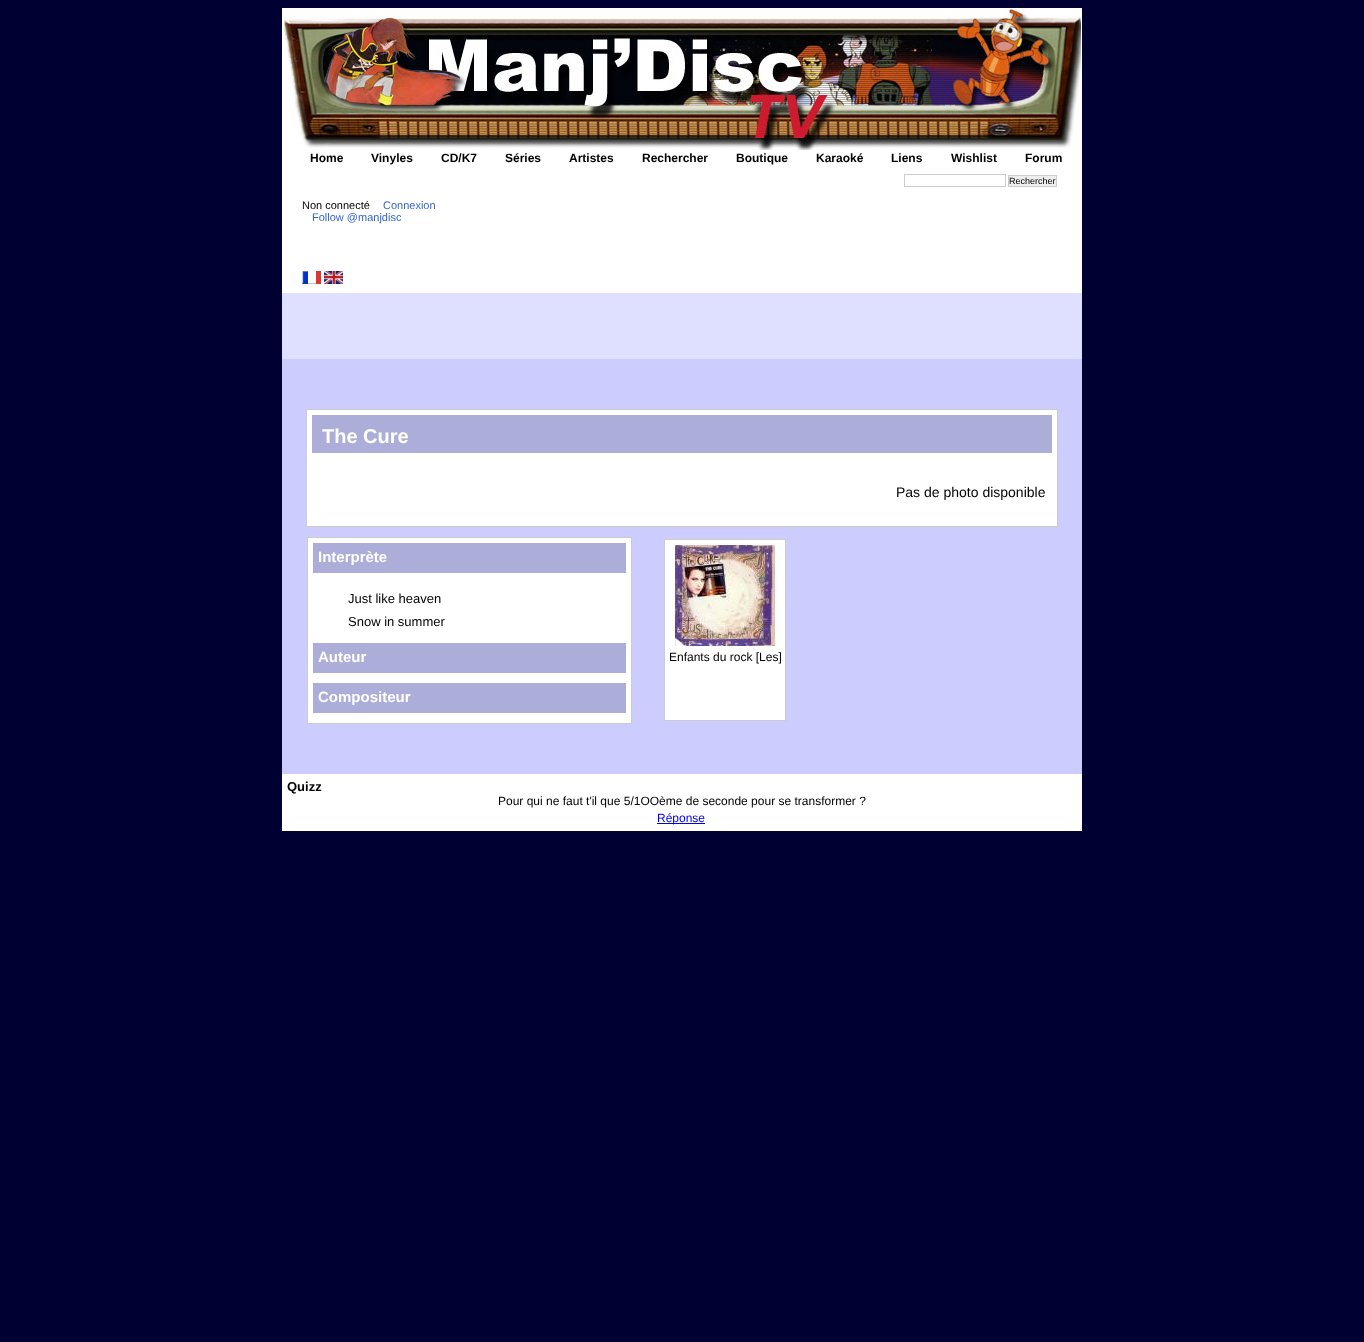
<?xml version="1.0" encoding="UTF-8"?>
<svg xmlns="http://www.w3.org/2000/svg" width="1364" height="1342">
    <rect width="100%" height="100%" fill="#000033"/>
    <rect x="282" y="293" width="800" height="66" fill="#DFDFFF"/>
    <rect x="282" y="8" width="800" height="285" fill="#FFFFFF"/>
    <image x="283" y="9" width="798" height="141" href="img_01.png"/>
    <text x="310" y="162" font-family="Liberation Sans" font-size="12" font-weight="700" fill="#000000">Home</text>
    <text x="371" y="162" font-family="Liberation Sans" font-size="12" font-weight="700" fill="#000000">Vinyles</text>
    <text x="441" y="162" font-family="Liberation Sans" font-size="12" font-weight="700" fill="#000000">CD/K7</text>
    <text x="505" y="162" font-family="Liberation Sans" font-size="12" font-weight="700" fill="#000000">Séries</text>
    <text x="569" y="162" font-family="Liberation Sans" font-size="12" font-weight="700" fill="#000000">Artistes</text>
    <text x="642" y="162" font-family="Liberation Sans" font-size="12" font-weight="700" fill="#000000">Rechercher</text>
    <text x="736" y="162" font-family="Liberation Sans" font-size="12" font-weight="700" fill="#000000">Boutique</text>
    <text x="816" y="162" font-family="Liberation Sans" font-size="12" font-weight="700" fill="#000000">Karaoké</text>
    <text x="891" y="162" font-family="Liberation Sans" font-size="12" font-weight="700" fill="#000000">Liens</text>
    <text x="951" y="162" font-family="Liberation Sans" font-size="12" font-weight="700" fill="#000000">Wishlist</text>
    <text x="1025" y="162" font-family="Liberation Sans" font-size="12" font-weight="700" fill="#000000">Forum</text>
    <rect x="904.5" y="174.5" width="101" height="12" fill="none" stroke="#CCCCCC"/>
    <rect x="1008.5" y="175.5" width="48" height="11" fill="#EEEEEE" stroke="#CCCCCC"/>
    <text x="1009" y="184" font-family="Liberation Sans" font-size="9" fill="#000000">Rechercher</text>
    <text x="302" y="209" font-family="Liberation Sans" font-size="11" fill="#000000">Non connecté</text>
    <text x="383" y="209" font-family="Liberation Sans" font-size="11" fill="#3366CC">Connexion</text>
    <text x="312" y="221" font-family="Liberation Sans" font-size="11" fill="#3366CC">Follow @manjdisc</text>
    <image x="302" y="271" width="19" height="13" href="img_02.png"/>
    <image x="324" y="271" width="19" height="13" href="img_03.png"/>
    <rect x="282" y="359" width="800" height="415" fill="#CCCCFF"/>
    <rect x="306.5" y="409.5" width="751" height="117" fill="none" stroke="#CCCCCC"/>
    <rect x="309.5" y="412.5" width="745" height="43" fill="#ADADD9" stroke="#FFFFFF" stroke-width="5"/>
    <text x="322" y="443" font-family="Liberation Sans" font-size="20" font-weight="700" fill="#FFFFFF">The Cure</text>
    <rect x="307" y="458" width="750" height="68" fill="#FFFFFF"/>
    <text x="896" y="497" font-family="Liberation Sans" font-size="14" fill="#000000">Pas de photo disponible</text>
    <rect x="307.5" y="537.5" width="324" height="186" fill="#FFFFFF" stroke="#CCCCCC"/>
    <rect x="313" y="543" width="313" height="30" fill="#ADADD9"/>
    <text x="318" y="562" font-family="Liberation Sans" font-size="15" font-weight="700" fill="#FFFFFF">Interprète</text>
    <text font-family="Liberation Sans" font-size="13" fill="#000000">
        <tspan x="348" y="603">Just like heaven</tspan>
        <tspan x="348" y="626">Snow in summer</tspan>
    </text>
    <rect x="313" y="643" width="313" height="30" fill="#ADADD9"/>
    <text x="318" y="662" font-family="Liberation Sans" font-size="15" font-weight="700" fill="#FFFFFF">Auteur</text>
    <rect x="313" y="683" width="313" height="30" fill="#ADADD9"/>
    <text x="318" y="702" font-family="Liberation Sans" font-size="15" font-weight="700" fill="#FFFFFF">Compositeur</text>
    <rect x="664.5" y="539.5" width="121" height="181" fill="#FFFFFF" stroke="#CCCCCC"/>
    <image x="675" y="545" width="100" height="101" href="img_04.png"/>
    <text x="669" y="661" font-family="Liberation Sans" font-size="12" fill="#000000">Enfants du rock [Les]</text>
    <rect x="282" y="774" width="800" height="57" fill="#FFFFFF"/>
    <text x="287" y="791" font-family="Liberation Sans" font-size="13" font-weight="700" fill="#000000">Quizz</text>
    <text x="498" y="805" font-family="Liberation Sans" font-size="12" fill="#000000">Pour qui ne faut t'il que 5/1OOème de seconde pour se transformer ?</text>
    <rect x="657" y="823" width="48" height="1" fill="#0000EE"/>
    <text x="657" y="822" font-family="Liberation Sans" font-size="12" fill="#0000EE">Réponse</text>
</svg>
